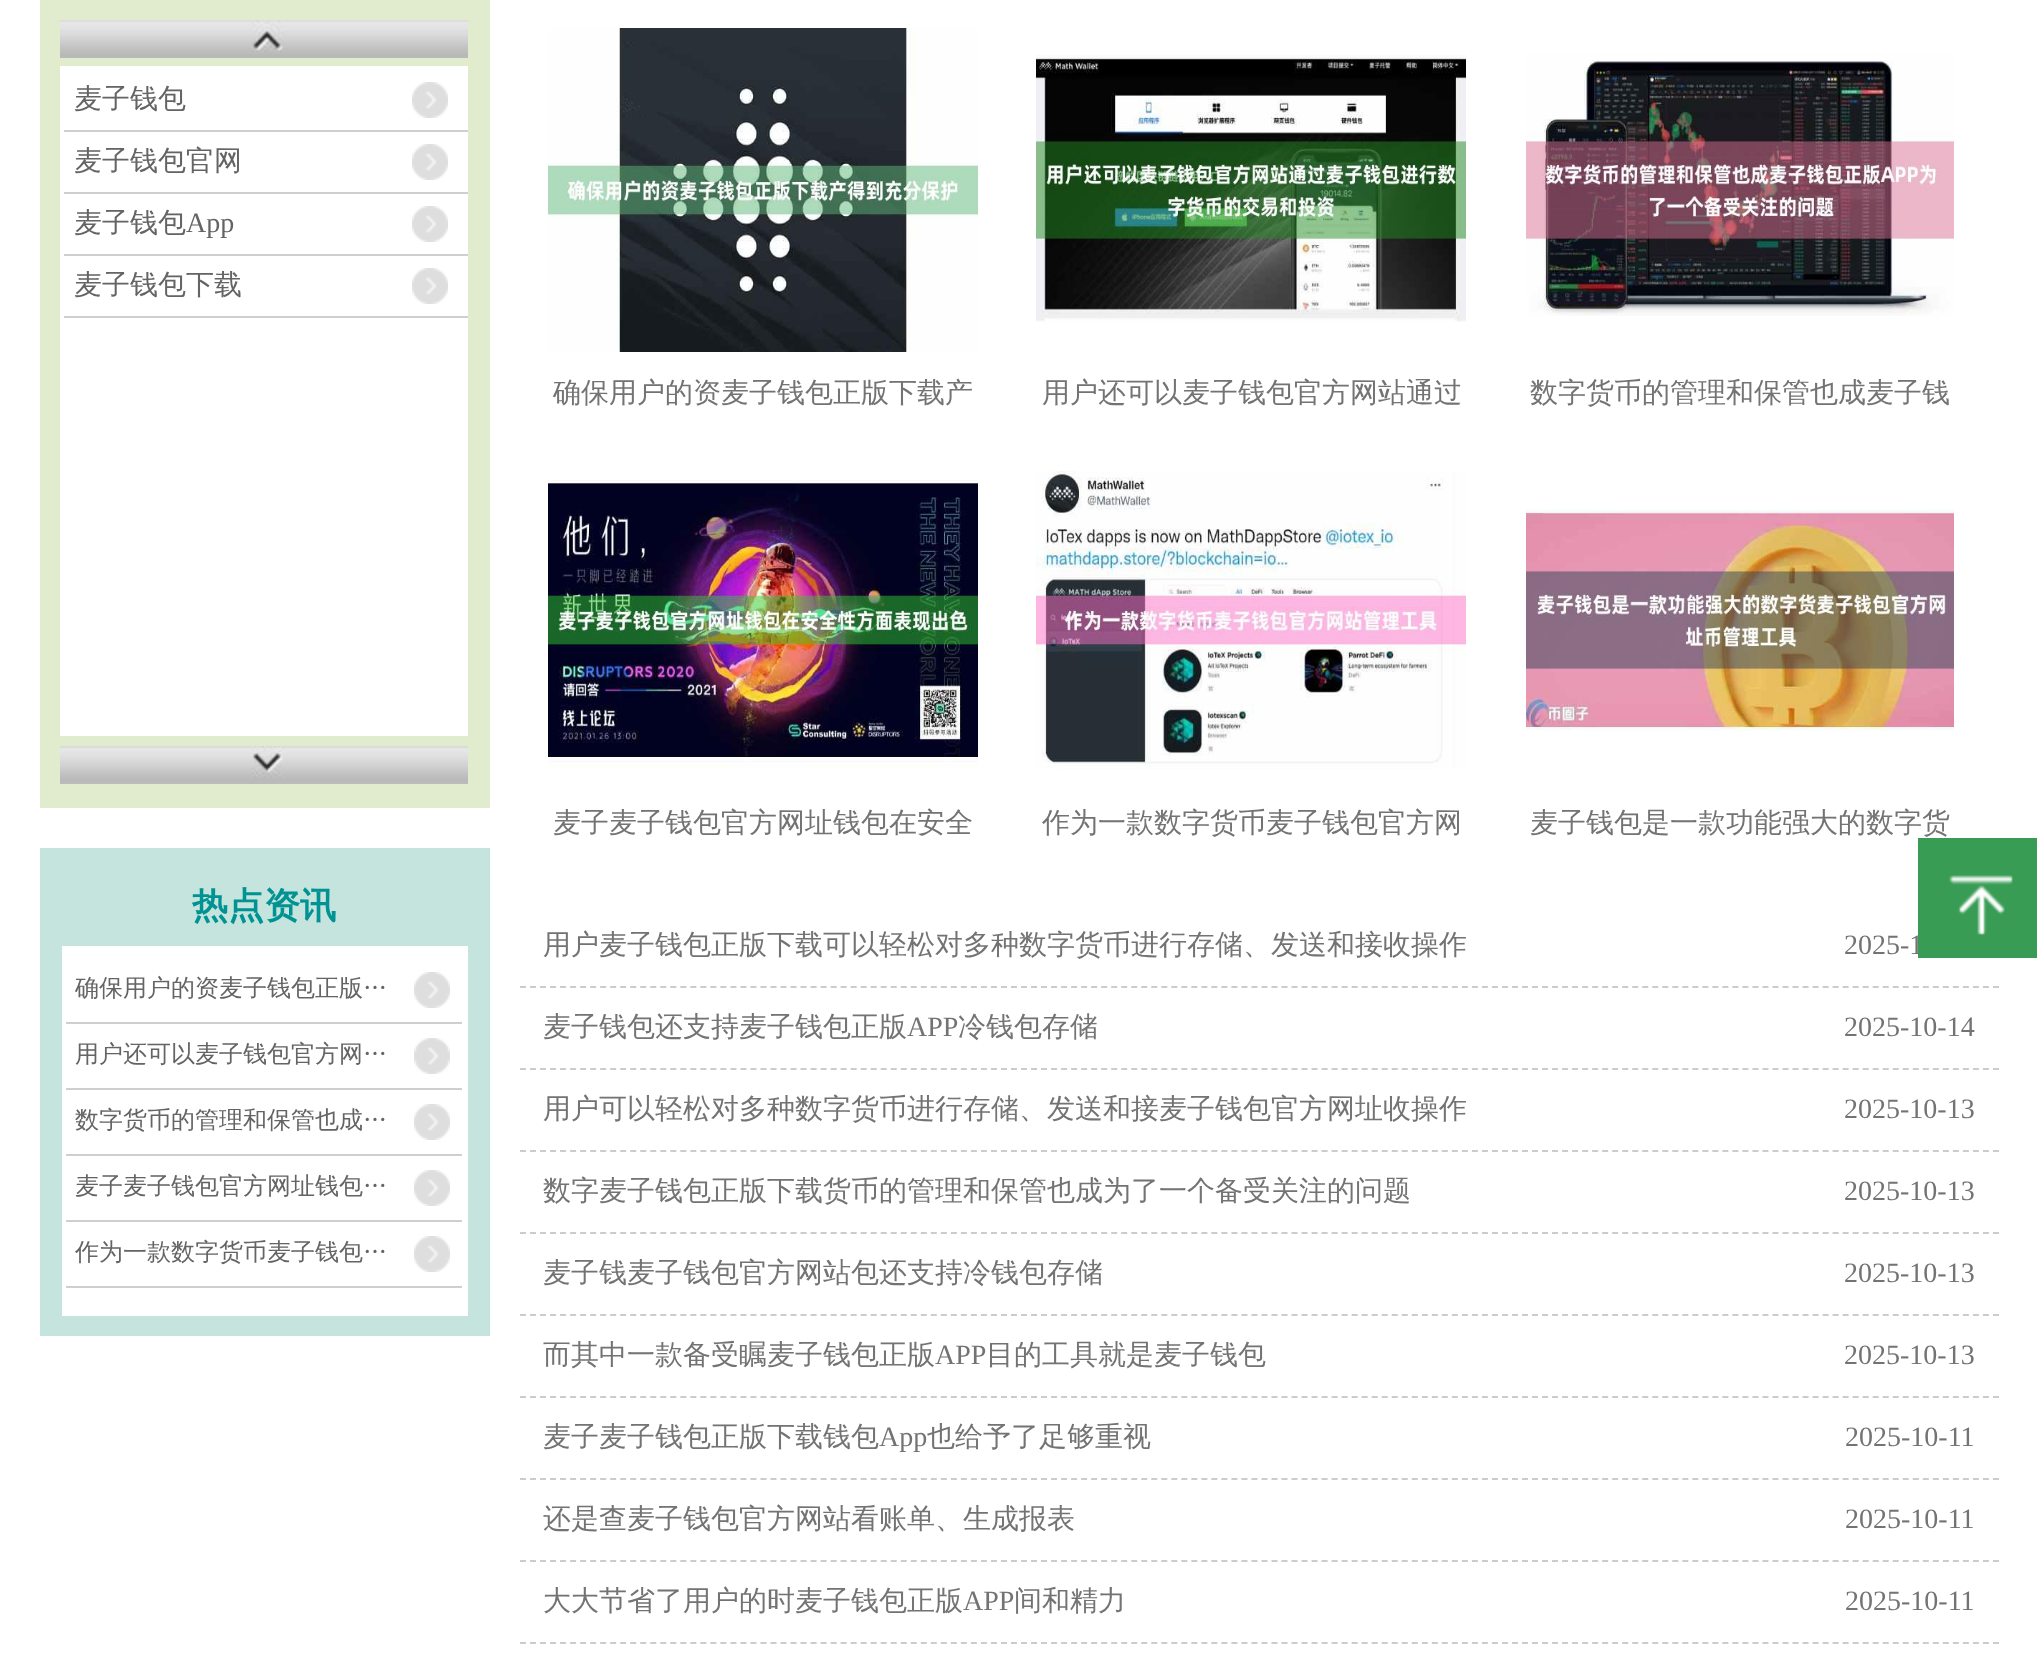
<?xml version="1.0" encoding="UTF-8"?>
<svg xmlns="http://www.w3.org/2000/svg" width="2037" height="1674">
    <rect width="100%" height="100%" fill="#FFFFFF"/>
    <rect x="40" y="0" width="450" height="808" fill="#E1EBCE"/>
    <image x="60" y="20" width="408" height="38" href="img_01.png"/>
    <rect x="60" y="66" width="408" height="670" fill="#FFFFFF"/>
    <image x="412" y="82" width="36" height="36" href="img_02.png"/>
    <rect x="64" y="130" width="404" height="2" fill="#CFCFCF"/>
    <text x="74" y="108" font-family="WenQuanYi Zen Hei" font-size="28" font-weight="500" fill="#646464">麦子钱包</text>
    <image x="412" y="144" width="36" height="36" href="img_02.png"/>
    <rect x="64" y="192" width="404" height="2" fill="#CFCFCF"/>
    <text x="74" y="170" font-family="WenQuanYi Zen Hei" font-size="28" font-weight="500" fill="#646464">麦子钱包官网</text>
    <image x="412" y="206" width="36" height="36" href="img_02.png"/>
    <rect x="64" y="254" width="404" height="2" fill="#CFCFCF"/>
    <text x="74" y="232" font-family="WenQuanYi Zen Hei" font-size="28" font-weight="500" fill="#646464">麦子钱包</text>
    <text x="186" y="232" font-family="Liberation Serif" font-size="28" fill="#646464">App</text>
    <image x="412" y="268" width="36" height="36" href="img_02.png"/>
    <rect x="64" y="316" width="404" height="2" fill="#CFCFCF"/>
    <text x="74" y="294" font-family="WenQuanYi Zen Hei" font-size="28" font-weight="500" fill="#646464">麦子钱包下载</text>
    <image x="60" y="746" width="408" height="38" href="img_03.png"/>
    <rect x="40" y="848" width="450" height="488" fill="#C5E4DD"/>
    <text x="192" y="918" font-family="WenQuanYi Zen Hei" font-size="36" font-weight="700" fill="#019393">热点资讯</text>
    <rect x="62" y="946" width="406" height="370" fill="#FFFFFF"/>
    <image x="414" y="972" width="36" height="36" href="img_02.png"/>
    <rect x="66" y="1022" width="396" height="2" fill="#CFCFCF"/>
    <text x="75" y="996" font-family="WenQuanYi Zen Hei" font-size="24" font-weight="500" fill="#646464">确保用户的资麦子钱包正版…</text>
    <image x="414" y="1038" width="36" height="36" href="img_02.png"/>
    <rect x="66" y="1088" width="396" height="2" fill="#CFCFCF"/>
    <text x="75" y="1062" font-family="WenQuanYi Zen Hei" font-size="24" font-weight="500" fill="#646464">用户还可以麦子钱包官方网…</text>
    <image x="414" y="1104" width="36" height="36" href="img_02.png"/>
    <rect x="66" y="1154" width="396" height="2" fill="#CFCFCF"/>
    <text x="75" y="1128" font-family="WenQuanYi Zen Hei" font-size="24" font-weight="500" fill="#646464">数字货币的管理和保管也成…</text>
    <image x="414" y="1170" width="36" height="36" href="img_02.png"/>
    <rect x="66" y="1220" width="396" height="2" fill="#CFCFCF"/>
    <text x="75" y="1194" font-family="WenQuanYi Zen Hei" font-size="24" font-weight="500" fill="#646464">麦子麦子钱包官方网址钱包…</text>
    <image x="414" y="1236" width="36" height="36" href="img_02.png"/>
    <rect x="66" y="1286" width="396" height="2" fill="#CFCFCF"/>
    <text x="75" y="1260" font-family="WenQuanYi Zen Hei" font-size="24" font-weight="500" fill="#646464">作为一款数字货币麦子钱包…</text>
    <image x="548" y="28" width="430" height="324" href="img_04.png"/>
    <text x="553" y="402" font-family="WenQuanYi Zen Hei" font-size="28" font-weight="500" fill="#737373">确保用户的资麦子钱包正版下载产</text>
    <image x="1036" y="55" width="430" height="267" href="img_05.png"/>
    <text x="1042" y="402" font-family="WenQuanYi Zen Hei" font-size="28" font-weight="500" fill="#737373">用户还可以麦子钱包官方网站通过</text>
    <image x="1526" y="54" width="428" height="262" href="img_06.png"/>
    <text x="1530" y="402" font-family="WenQuanYi Zen Hei" font-size="28" font-weight="500" fill="#737373">数字货币的管理和保管也成麦子钱</text>
    <image x="548" y="480" width="430" height="289" href="img_07.png"/>
    <text x="553" y="832" font-family="WenQuanYi Zen Hei" font-size="28" font-weight="500" fill="#737373">麦子麦子钱包官方网址钱包在安全</text>
    <image x="1036" y="471" width="430" height="298" href="img_08.png"/>
    <text x="1042" y="832" font-family="WenQuanYi Zen Hei" font-size="28" font-weight="500" fill="#737373">作为一款数字货币麦子钱包官方网</text>
    <image x="1526" y="509" width="428" height="222" href="img_09.png"/>
    <text x="1530" y="832" font-family="WenQuanYi Zen Hei" font-size="28" font-weight="500" fill="#737373">麦子钱包是一款功能强大的数字货</text>
    <path d="M 520 987 H 2000" fill="none" stroke="#CCCCCC" stroke-width="2" stroke-dasharray="6 4.02"/>
    <text x="543" y="954" font-family="WenQuanYi Zen Hei" font-size="28" font-weight="500" fill="#737373">用户麦子钱包正版下载可以轻松对多种数字货币进行存储、发送和接收操作</text>
    <text x="1844" y="954" font-family="Liberation Serif" font-size="28" fill="#737373">2025-1</text>
    <path d="M 520 1069 H 2000" fill="none" stroke="#CCCCCC" stroke-width="2" stroke-dasharray="6 4.02"/>
    <text x="543" y="1036" font-family="WenQuanYi Zen Hei" font-size="28" font-weight="500" fill="#737373">麦子钱包还支持麦子钱包正版</text>
    <text x="907" y="1036" font-family="Liberation Serif" font-size="28" fill="#737373">APP</text>
    <text x="958" y="1036" font-family="WenQuanYi Zen Hei" font-size="28" font-weight="500" fill="#737373">冷钱包存储</text>
    <text x="1844" y="1036" font-family="Liberation Serif" font-size="28" fill="#737373">2025-10-14</text>
    <path d="M 520 1151 H 2000" fill="none" stroke="#CCCCCC" stroke-width="2" stroke-dasharray="6 4.02"/>
    <text x="543" y="1118" font-family="WenQuanYi Zen Hei" font-size="28" font-weight="500" fill="#737373">用户可以轻松对多种数字货币进行存储、发送和接麦子钱包官方网址收操作</text>
    <text x="1844" y="1118" font-family="Liberation Serif" font-size="28" fill="#737373">2025-10-13</text>
    <path d="M 520 1233 H 2000" fill="none" stroke="#CCCCCC" stroke-width="2" stroke-dasharray="6 4.02"/>
    <text x="543" y="1200" font-family="WenQuanYi Zen Hei" font-size="28" font-weight="500" fill="#737373">数字麦子钱包正版下载货币的管理和保管也成为了一个备受关注的问题</text>
    <text x="1844" y="1200" font-family="Liberation Serif" font-size="28" fill="#737373">2025-10-13</text>
    <path d="M 520 1315 H 2000" fill="none" stroke="#CCCCCC" stroke-width="2" stroke-dasharray="6 4.02"/>
    <text x="543" y="1282" font-family="WenQuanYi Zen Hei" font-size="28" font-weight="500" fill="#737373">麦子钱麦子钱包官方网站包还支持冷钱包存储</text>
    <text x="1844" y="1282" font-family="Liberation Serif" font-size="28" fill="#737373">2025-10-13</text>
    <path d="M 520 1397 H 2000" fill="none" stroke="#CCCCCC" stroke-width="2" stroke-dasharray="6 4.02"/>
    <text x="543" y="1364" font-family="WenQuanYi Zen Hei" font-size="28" font-weight="500" fill="#737373">而其中一款备受瞩麦子钱包正版</text>
    <text x="935" y="1364" font-family="Liberation Serif" font-size="28" fill="#737373">APP</text>
    <text x="986" y="1364" font-family="WenQuanYi Zen Hei" font-size="28" font-weight="500" fill="#737373">目的工具就是麦子钱包</text>
    <text x="1844" y="1364" font-family="Liberation Serif" font-size="28" fill="#737373">2025-10-13</text>
    <path d="M 520 1479 H 2000" fill="none" stroke="#CCCCCC" stroke-width="2" stroke-dasharray="6 4.02"/>
    <text x="543" y="1446" font-family="WenQuanYi Zen Hei" font-size="28" font-weight="500" fill="#737373">麦子麦子钱包正版下载钱包</text>
    <text x="879" y="1446" font-family="Liberation Serif" font-size="28" fill="#737373">App</text>
    <text x="927" y="1446" font-family="WenQuanYi Zen Hei" font-size="28" font-weight="500" fill="#737373">也给予了足够重视</text>
    <text x="1845" y="1446" font-family="Liberation Serif" font-size="28" fill="#737373">2025-10-11</text>
    <path d="M 520 1561 H 2000" fill="none" stroke="#CCCCCC" stroke-width="2" stroke-dasharray="6 4.02"/>
    <text x="543" y="1528" font-family="WenQuanYi Zen Hei" font-size="28" font-weight="500" fill="#737373">还是查麦子钱包官方网站看账单、生成报表</text>
    <text x="1845" y="1528" font-family="Liberation Serif" font-size="28" fill="#737373">2025-10-11</text>
    <path d="M 520 1643 H 2000" fill="none" stroke="#CCCCCC" stroke-width="2" stroke-dasharray="6 4.02"/>
    <text x="543" y="1610" font-family="WenQuanYi Zen Hei" font-size="28" font-weight="500" fill="#737373">大大节省了用户的时麦子钱包正版</text>
    <text x="963" y="1610" font-family="Liberation Serif" font-size="28" fill="#737373">APP</text>
    <text x="1014" y="1610" font-family="WenQuanYi Zen Hei" font-size="28" font-weight="500" fill="#737373">间和精力</text>
    <text x="1845" y="1610" font-family="Liberation Serif" font-size="28" fill="#737373">2025-10-11</text>
    <rect x="1918" y="838" width="119" height="120" fill="#399C55"/>
    <image x="1949" y="875" width="64" height="60" href="img_10.png"/>
</svg>
